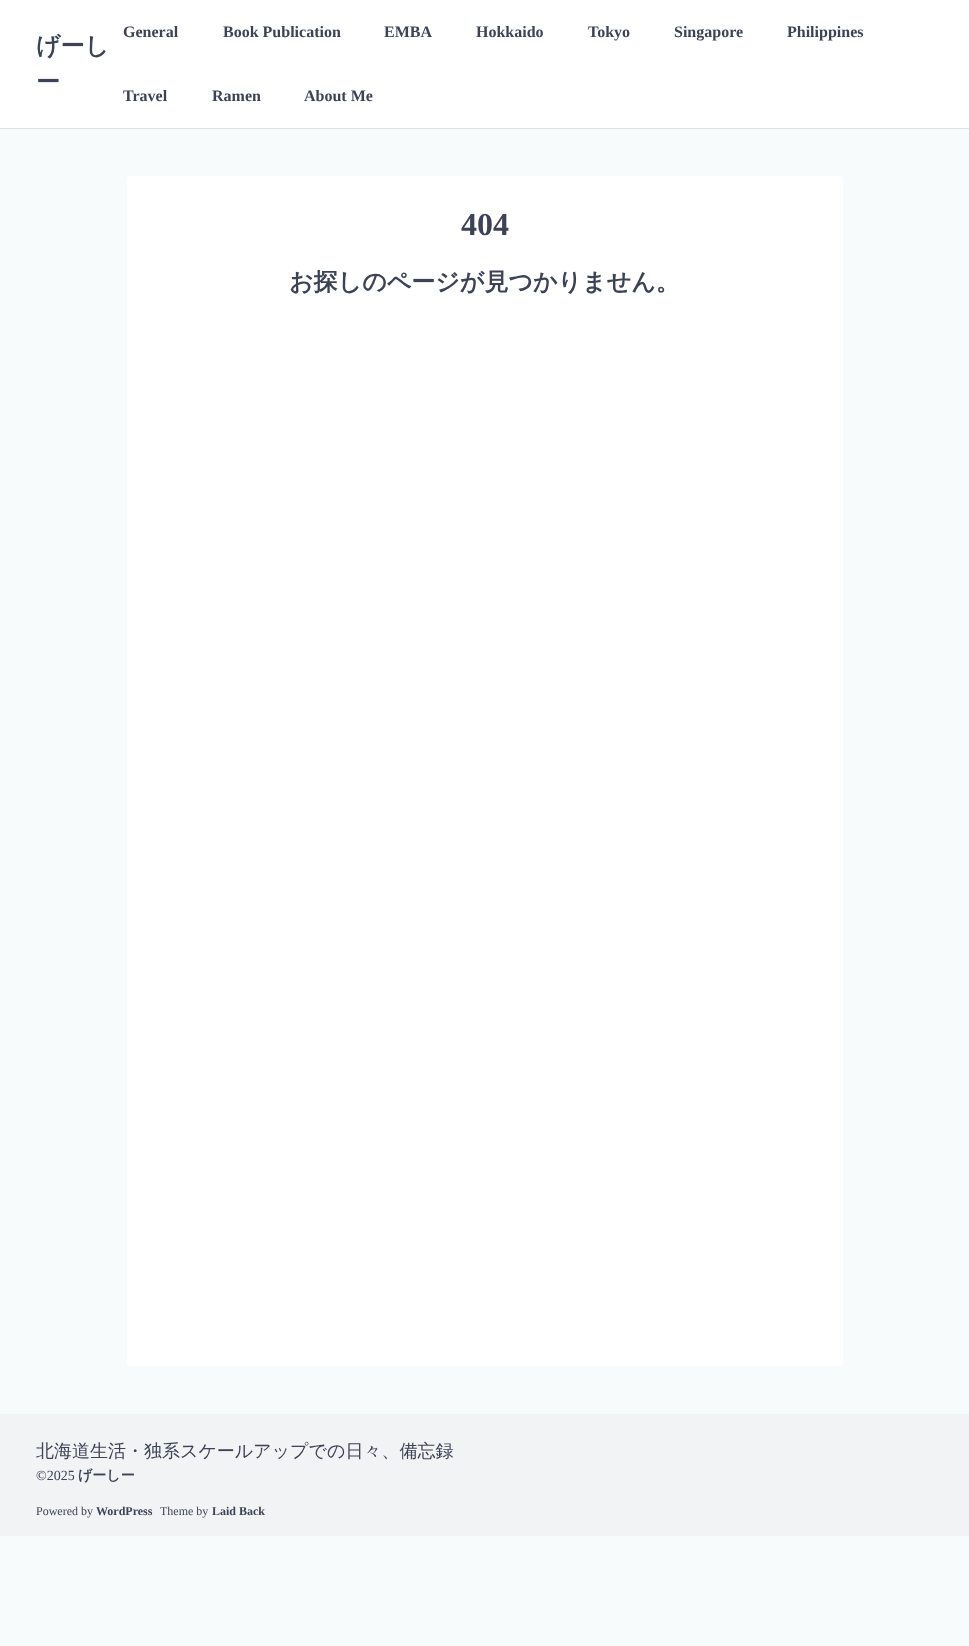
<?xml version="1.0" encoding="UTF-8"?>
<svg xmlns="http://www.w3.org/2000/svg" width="969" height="1646">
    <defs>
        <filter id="blur1" x="-50%" y="-200%" width="200%" height="500%"><feGaussianBlur stdDeviation="0.5"/></filter>
    </defs>
    <rect width="100%" height="100%" fill="#F8FBFB"/>
    <rect x="0" y="1" width="969" height="128" fill="#000000" fill-opacity="0.1" filter="url(#blur1)"/>
    <rect x="0" y="0" width="969" height="128" fill="#FFFFFF"/>
    <text font-family="WenQuanYi Zen Hei" font-size="24" font-weight="700" fill="#3C4356">
        <tspan x="36" y="54">げーし</tspan>
        <tspan x="36" y="90">ー</tspan>
    </text>
    <text x="123" y="37" font-family="Liberation Serif" font-size="16" font-weight="700" fill="#3C4356">General</text>
    <text x="223" y="37" font-family="Liberation Serif" font-size="16" font-weight="700" fill="#3C4356">Book Publication</text>
    <text x="384" y="37" font-family="Liberation Serif" font-size="16" font-weight="700" fill="#3C4356">EMBA</text>
    <text x="476" y="37" font-family="Liberation Serif" font-size="16" font-weight="700" fill="#3C4356">Hokkaido</text>
    <text x="588" y="37" font-family="Liberation Serif" font-size="16" font-weight="700" fill="#3C4356">Tokyo</text>
    <text x="674" y="37" font-family="Liberation Serif" font-size="16" font-weight="700" fill="#3C4356">Singapore</text>
    <text x="787" y="37" font-family="Liberation Serif" font-size="16" font-weight="700" fill="#3C4356">Philippines</text>
    <text x="123" y="101" font-family="Liberation Serif" font-size="16" font-weight="700" fill="#3C4356">Travel</text>
    <text x="212" y="101" font-family="Liberation Serif" font-size="16" font-weight="700" fill="#3C4356">Ramen</text>
    <text x="304" y="101" font-family="Liberation Serif" font-size="16" font-weight="700" fill="#3C4356">About Me</text>
    <rect x="127" y="176" width="716" height="1190" rx="4" fill="#FFFFFF"/>
    <text x="461" y="235" font-family="Liberation Serif" font-size="32" font-weight="700" fill="#3C4356">404</text>
    <text x="289" y="290" font-family="WenQuanYi Zen Hei" font-size="24" font-weight="700" fill="#3C4356">お探しのページが見つかりません。</text>
    <rect x="0" y="1414" width="969" height="122" fill="#F1F3F5"/>
    <text x="36" y="1457" font-family="WenQuanYi Zen Hei" font-size="18" font-weight="500" fill="#3C4356">北海道生活・独系スケールアップでの日々、備忘録</text>
    <text x="36" y="1480" font-family="Liberation Serif" font-size="14" fill="#3C4356">©2025</text>
    <text x="78" y="1480" font-family="WenQuanYi Zen Hei" font-size="14" font-weight="700" fill="#3C4356">げーしー</text>
    <text x="36" y="1515" font-family="Liberation Serif" font-size="12" fill="#3C4356">Powered by</text>
    <text x="96" y="1515" font-family="Liberation Serif" font-size="12" font-weight="700" fill="#3C4356">WordPress</text>
    <text x="160" y="1515" font-family="Liberation Serif" font-size="12" fill="#3C4356">Theme by</text>
    <text x="212" y="1515" font-family="Liberation Serif" font-size="12" font-weight="700" fill="#3C4356">Laid Back</text>
</svg>
